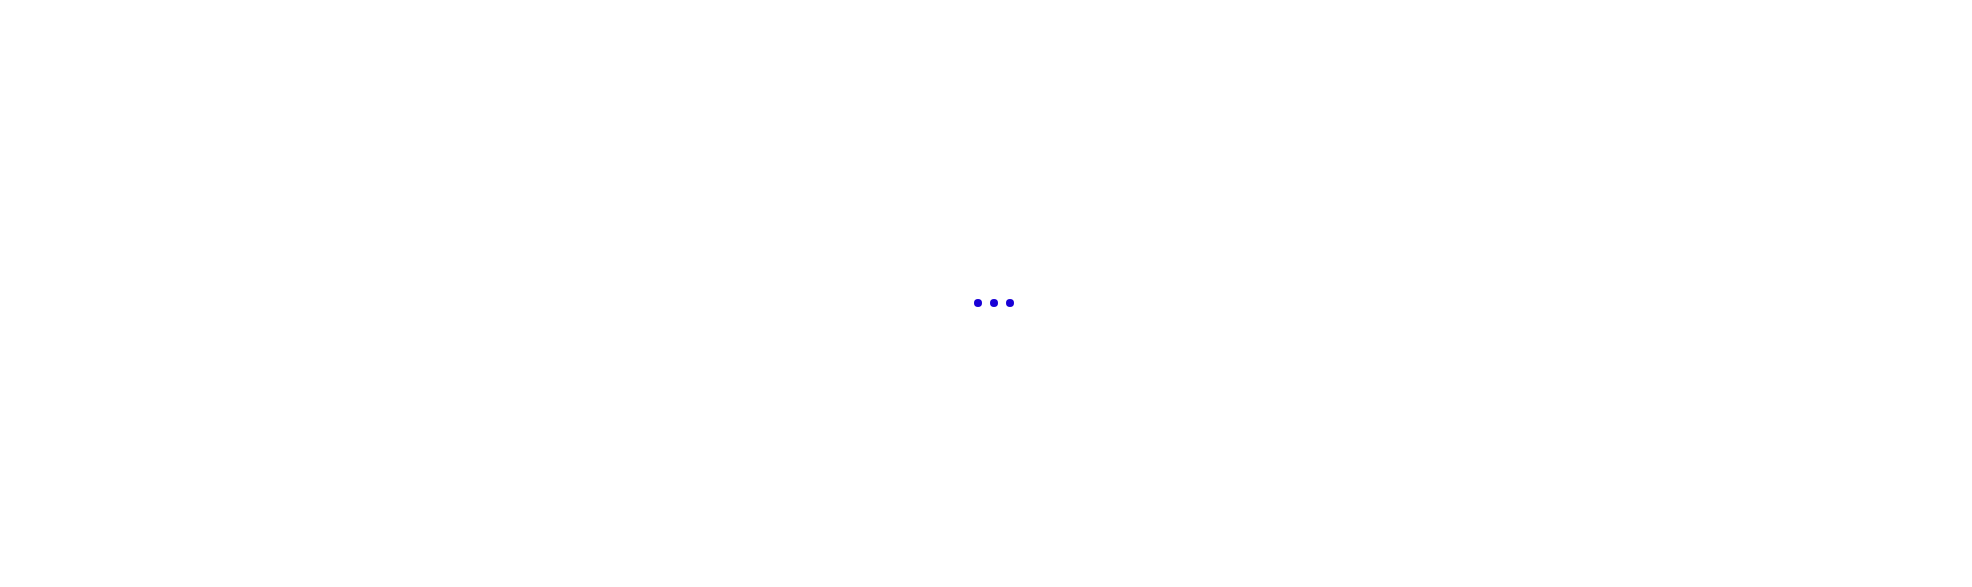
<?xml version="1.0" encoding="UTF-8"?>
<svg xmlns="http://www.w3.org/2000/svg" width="1972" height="587">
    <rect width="100%" height="100%" fill="#FFFFFF"/>
    <circle cx="978" cy="303" r="4" fill="#1800D6"/>
    <circle cx="994" cy="303" r="4" fill="#1800D6"/>
    <circle cx="1010" cy="303" r="4" fill="#1800D6"/>
</svg>
